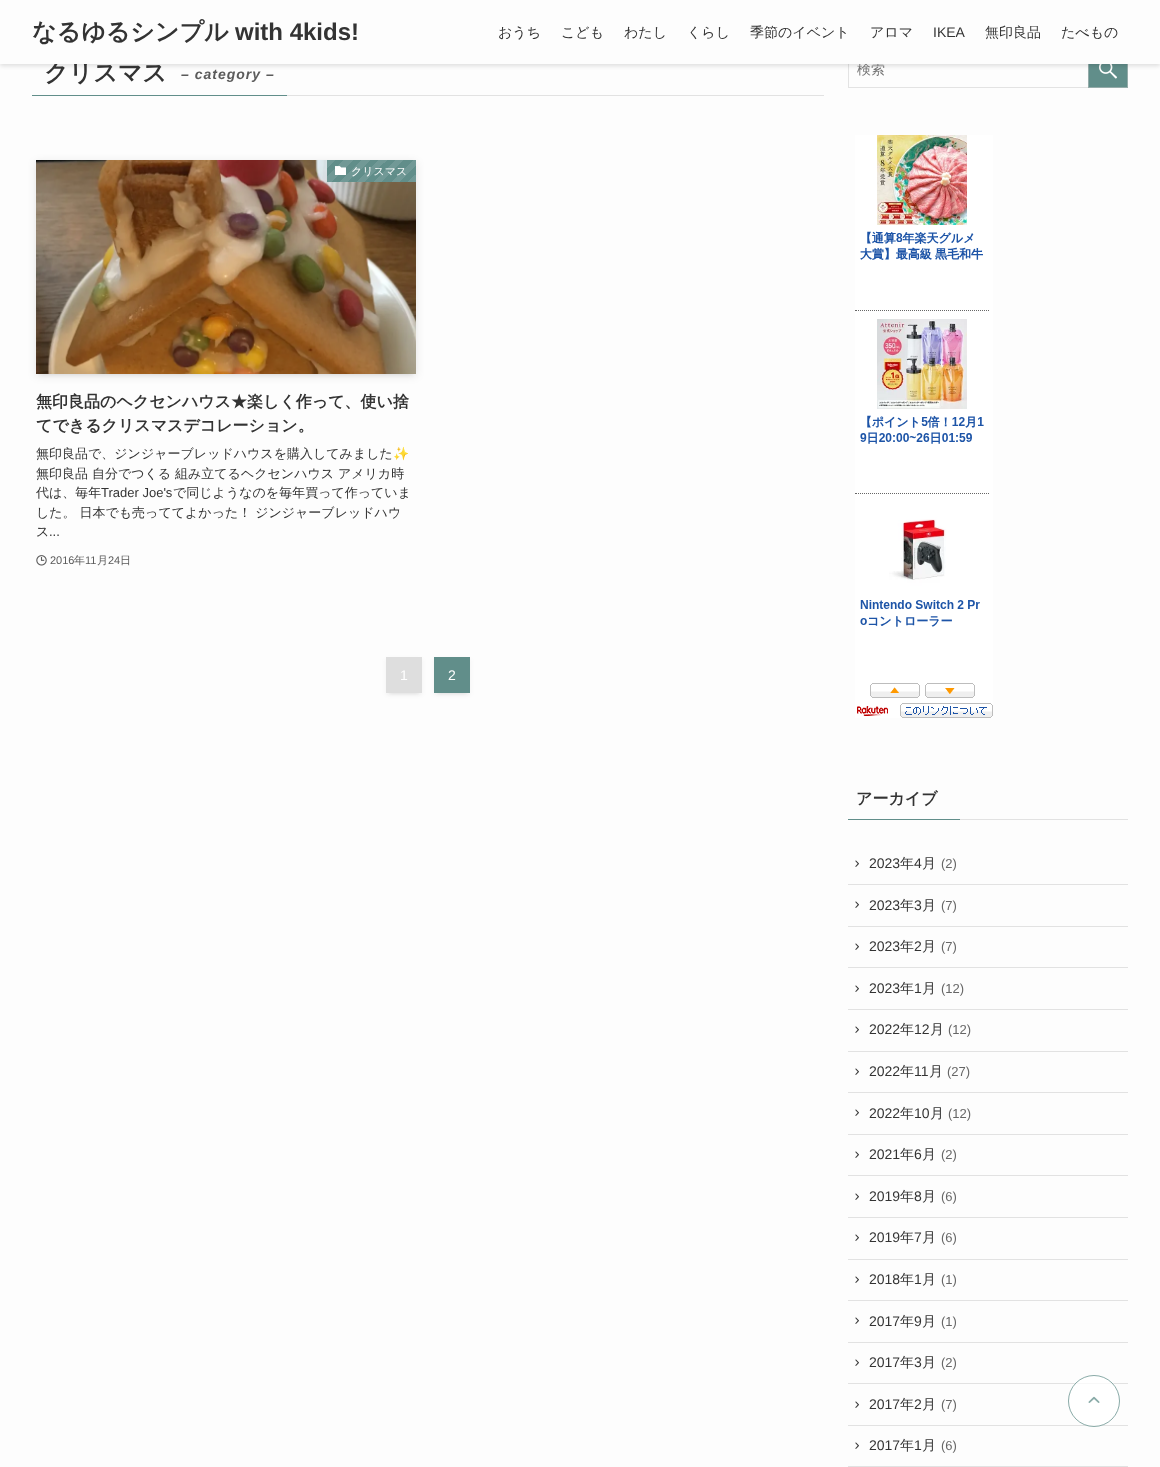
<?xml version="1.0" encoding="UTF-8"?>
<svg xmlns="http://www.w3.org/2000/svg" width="1160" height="1467">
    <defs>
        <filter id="blur1" x="-50%" y="-200%" width="200%" height="500%"><feGaussianBlur stdDeviation="2"/></filter>
        <filter id="blur2" x="-50%" y="-200%" width="200%" height="500%"><feGaussianBlur stdDeviation="4"/></filter>
        <linearGradient id="g1" gradientUnits="userSpaceOnUse" x1="399" y1="199" x2="340" y2="139"><stop offset="0" stop-color="#719996"/><stop offset="0.07" stop-color="#719996"/><stop offset="0.07" stop-color="#618E8A"/><stop offset="0.14" stop-color="#618E8A"/><stop offset="0.14" stop-color="#719996"/><stop offset="0.21" stop-color="#719996"/><stop offset="0.21" stop-color="#618E8A"/><stop offset="0.29" stop-color="#618E8A"/><stop offset="0.29" stop-color="#719996"/><stop offset="0.36" stop-color="#719996"/><stop offset="0.36" stop-color="#618E8A"/><stop offset="0.43" stop-color="#618E8A"/><stop offset="0.43" stop-color="#719996"/><stop offset="0.5" stop-color="#719996"/><stop offset="0.5" stop-color="#618E8A"/><stop offset="0.57" stop-color="#618E8A"/><stop offset="0.57" stop-color="#719996"/><stop offset="0.64" stop-color="#719996"/><stop offset="0.64" stop-color="#618E8A"/><stop offset="0.71" stop-color="#618E8A"/><stop offset="0.71" stop-color="#719996"/><stop offset="0.79" stop-color="#719996"/><stop offset="0.79" stop-color="#618E8A"/><stop offset="0.86" stop-color="#618E8A"/><stop offset="0.86" stop-color="#719996"/><stop offset="0.93" stop-color="#719996"/><stop offset="0.93" stop-color="#618E8A"/><stop offset="1" stop-color="#618E8A"/></linearGradient>
    </defs>
    <rect width="100%" height="100%" fill="#FDFDFD"/>
    <rect x="848.5" y="50.5" width="279" height="37" fill="none" stroke="#E3E3E3"/>
    <rect x="1089" y="64" width="38" height="23" fill="#618E8A"/>
    <rect x="1088.5" y="50.5" width="39" height="37" fill="none" stroke="#94ABA9"/>
    <image x="1099" y="64" width="18" height="15" href="img_04.png"/>
    <rect x="0" y="2" width="1160" height="64" fill="#000000" fill-opacity="0.12" filter="url(#blur1)"/>
    <text x="44" y="81" font-family="WenQuanYi Zen Hei" font-size="24" font-weight="700" fill="#333333">クリスマス</text>
    <text x="857" y="74" font-family="WenQuanYi Zen Hei" font-size="14" font-weight="500" fill="#757575">検索</text>
    <rect x="0" y="0" width="1160" height="64" fill="#FDFDFD"/>
    <text x="32" y="40" font-family="WenQuanYi Zen Hei" font-size="24" font-weight="700" fill="#333333">なるゆるシンプル</text>
    <text x="235" y="40" font-family="Liberation Sans" font-size="24" font-weight="700" fill="#333333">with 4kids!</text>
    <text x="498" y="37" font-family="WenQuanYi Zen Hei" font-size="14" font-weight="500" fill="#333333">おうち</text>
    <text x="561" y="37" font-family="WenQuanYi Zen Hei" font-size="14" font-weight="500" fill="#333333">こども</text>
    <text x="624" y="37" font-family="WenQuanYi Zen Hei" font-size="14" font-weight="500" fill="#333333">わたし</text>
    <text x="687" y="37" font-family="WenQuanYi Zen Hei" font-size="14" font-weight="500" fill="#333333">くらし</text>
    <text x="750" y="37" font-family="WenQuanYi Zen Hei" font-size="14" font-weight="500" fill="#333333">季節のイベント</text>
    <text x="870" y="37" font-family="WenQuanYi Zen Hei" font-size="14" font-weight="500" fill="#333333">アロマ</text>
    <text x="933" y="37" font-family="Liberation Sans" font-size="14" fill="#333333">IKEA</text>
    <text x="985" y="37" font-family="WenQuanYi Zen Hei" font-size="14" font-weight="500" fill="#333333">無印良品</text>
    <text x="1061" y="37" font-family="WenQuanYi Zen Hei" font-size="14" font-weight="500" fill="#333333">たべもの</text>
    <rect x="287" y="95" width="537" height="1" fill="#E2E2E2"/>
    <rect x="32" y="95" width="255" height="1" fill="#618E8A"/>
    <text x="181" y="79" font-family="Liberation Sans" font-size="14" font-weight="700" font-style="italic" letter-spacing="1" fill="#5B5B5B">– category –</text>
    <rect x="40" y="168" width="372" height="206" fill="#000000" fill-opacity="0.1" filter="url(#blur1)"/>
    <rect x="36" y="162" width="380" height="214" fill="#000000" fill-opacity="0.1" filter="url(#blur2)"/>
    <image x="36" y="160" width="380" height="214" href="img_01.png"/>
    <rect x="327" y="160" width="89" height="22" fill="url(#g1)"/>
    <image x="335" y="166" width="11" height="9" href="img_02.png"/>
    <text x="351" y="175" font-family="WenQuanYi Zen Hei" font-size="11" font-weight="500" fill="#FFFFFF">クリスマス</text>
    <text font-family="WenQuanYi Zen Hei" font-size="16" font-weight="700" fill="#333333">
        <tspan x="36" y="407">無印良品のヘクセンハウス★楽しく作って、使い捨</tspan>
        <tspan x="36" y="431">てできるクリスマスデコレーション。</tspan>
    </text>
    <text x="36" y="458" font-family="WenQuanYi Zen Hei" font-size="13" font-weight="500" fill="#333333">無印良品で、ジンジャーブレッドハウスを購入してみました</text>
    <text x="393" y="458" font-family="Noto Color Emoji" font-size="13" fill="#333333">✨</text>
    <text font-family="WenQuanYi Zen Hei" font-size="13" font-weight="500" fill="#333333">
        <tspan x="36" y="478">無印良品 自分でつくる 組み立てるヘクセンハウス アメリカ時</tspan>
        <tspan x="36" y="497">代は、毎年</tspan>
    </text>
    <text x="101" y="497" font-family="Liberation Sans" font-size="13" fill="#333333">Trader Joe's</text>
    <text x="173" y="497" font-family="WenQuanYi Zen Hei" font-size="13" font-weight="500" fill="#333333">で同じようなのを毎年買って作っていま</text>
    <text font-family="WenQuanYi Zen Hei" font-size="13" font-weight="500" fill="#333333">
        <tspan x="36" y="517">した。 日本でも売っててよかった！ ジンジャーブレッドハウ</tspan>
        <tspan x="36" y="536">ス</tspan>
    </text>
    <text x="49" y="536" font-family="Liberation Sans" font-size="13" fill="#333333">...</text>
    <image x="36" y="555" width="11" height="11" href="img_03.png"/>
    <text x="50" y="564" font-family="Liberation Sans" font-size="11" fill="#5B5B5B">2016</text>
    <text x="74" y="564" font-family="WenQuanYi Zen Hei" font-size="11" font-weight="500" fill="#5B5B5B">年</text>
    <text x="85" y="564" font-family="Liberation Sans" font-size="11" fill="#5B5B5B">11</text>
    <text x="97" y="564" font-family="WenQuanYi Zen Hei" font-size="11" font-weight="500" fill="#5B5B5B">月</text>
    <text x="108" y="564" font-family="Liberation Sans" font-size="11" fill="#5B5B5B">24</text>
    <text x="120" y="564" font-family="WenQuanYi Zen Hei" font-size="11" font-weight="500" fill="#5B5B5B">日</text>
    <rect x="390" y="665" width="28" height="28" fill="#000000" fill-opacity="0.1" filter="url(#blur1)"/>
    <rect x="386" y="659" width="36" height="36" fill="#000000" fill-opacity="0.05" filter="url(#blur1)"/>
    <rect x="386" y="657" width="36" height="36" fill="#DEDEDE"/>
    <text x="400" y="680" font-family="Liberation Sans" font-size="14" fill="#FFFFFF">1</text>
    <rect x="438" y="665" width="28" height="28" fill="#000000" fill-opacity="0.1" filter="url(#blur1)"/>
    <rect x="434" y="659" width="36" height="36" fill="#000000" fill-opacity="0.05" filter="url(#blur1)"/>
    <rect x="434" y="657" width="36" height="36" fill="#618E8A"/>
    <text x="448" y="680" font-family="Liberation Sans" font-size="14" fill="#FFFFFF">2</text>
    <image x="855" y="135" width="138" height="583" href="img_05.png"/>
    <text x="856" y="804" font-family="WenQuanYi Zen Hei" font-size="16" font-weight="700" fill="#333333">アーカイブ</text>
    <rect x="848" y="819" width="112" height="1" fill="#618E8A"/>
    <rect x="960" y="819" width="168" height="1" fill="#E2E2E2"/>
    <rect x="848" y="884" width="280" height="1" fill="#E2E2E2"/>
    <image x="855" y="860" width="4" height="7" href="img_06.png"/>
    <text x="869" y="868" font-family="Liberation Sans" font-size="14" fill="#333333">2023</text>
    <text x="900" y="868" font-family="WenQuanYi Zen Hei" font-size="14" font-weight="500" fill="#333333">年</text>
    <text x="914" y="868" font-family="Liberation Sans" font-size="14" fill="#333333">4</text>
    <text x="922" y="868" font-family="WenQuanYi Zen Hei" font-size="14" font-weight="500" fill="#333333">月</text>
    <text x="941" y="868" font-family="Liberation Sans" font-size="13" fill="#666666">(2)</text>
    <rect x="848" y="926" width="280" height="1" fill="#E2E2E2"/>
    <image x="855" y="901" width="4" height="7" href="img_06.png"/>
    <text x="869" y="910" font-family="Liberation Sans" font-size="14" fill="#333333">2023</text>
    <text x="900" y="910" font-family="WenQuanYi Zen Hei" font-size="14" font-weight="500" fill="#333333">年</text>
    <text x="914" y="910" font-family="Liberation Sans" font-size="14" fill="#333333">3</text>
    <text x="922" y="910" font-family="WenQuanYi Zen Hei" font-size="14" font-weight="500" fill="#333333">月</text>
    <text x="941" y="910" font-family="Liberation Sans" font-size="13" fill="#666666">(7)</text>
    <rect x="848" y="967" width="280" height="1" fill="#E2E2E2"/>
    <image x="855" y="943" width="4" height="7" href="img_06.png"/>
    <text x="869" y="951" font-family="Liberation Sans" font-size="14" fill="#333333">2023</text>
    <text x="900" y="951" font-family="WenQuanYi Zen Hei" font-size="14" font-weight="500" fill="#333333">年</text>
    <text x="914" y="951" font-family="Liberation Sans" font-size="14" fill="#333333">2</text>
    <text x="922" y="951" font-family="WenQuanYi Zen Hei" font-size="14" font-weight="500" fill="#333333">月</text>
    <text x="941" y="951" font-family="Liberation Sans" font-size="13" fill="#666666">(7)</text>
    <rect x="848" y="1009" width="280" height="1" fill="#E2E2E2"/>
    <image x="855" y="985" width="4" height="7" href="img_06.png"/>
    <text x="869" y="993" font-family="Liberation Sans" font-size="14" fill="#333333">2023</text>
    <text x="900" y="993" font-family="WenQuanYi Zen Hei" font-size="14" font-weight="500" fill="#333333">年</text>
    <text x="914" y="993" font-family="Liberation Sans" font-size="14" fill="#333333">1</text>
    <text x="922" y="993" font-family="WenQuanYi Zen Hei" font-size="14" font-weight="500" fill="#333333">月</text>
    <text x="941" y="993" font-family="Liberation Sans" font-size="13" fill="#666666">(12)</text>
    <rect x="848" y="1051" width="280" height="1" fill="#E2E2E2"/>
    <image x="855" y="1026" width="4" height="7" href="img_06.png"/>
    <text x="869" y="1034" font-family="Liberation Sans" font-size="14" fill="#333333">2022</text>
    <text x="900" y="1034" font-family="WenQuanYi Zen Hei" font-size="14" font-weight="500" fill="#333333">年</text>
    <text x="914" y="1034" font-family="Liberation Sans" font-size="14" fill="#333333">12</text>
    <text x="930" y="1034" font-family="WenQuanYi Zen Hei" font-size="14" font-weight="500" fill="#333333">月</text>
    <text x="948" y="1034" font-family="Liberation Sans" font-size="13" fill="#666666">(12)</text>
    <rect x="848" y="1092" width="280" height="1" fill="#E2E2E2"/>
    <image x="855" y="1068" width="4" height="7" href="img_06.png"/>
    <text x="869" y="1076" font-family="Liberation Sans" font-size="14" fill="#333333">2022</text>
    <text x="900" y="1076" font-family="WenQuanYi Zen Hei" font-size="14" font-weight="500" fill="#333333">年</text>
    <text x="914" y="1076" font-family="Liberation Sans" font-size="14" fill="#333333">11</text>
    <text x="929" y="1076" font-family="WenQuanYi Zen Hei" font-size="14" font-weight="500" fill="#333333">月</text>
    <text x="947" y="1076" font-family="Liberation Sans" font-size="13" fill="#666666">(27)</text>
    <rect x="848" y="1134" width="280" height="1" fill="#E2E2E2"/>
    <image x="855" y="1109" width="4" height="7" href="img_06.png"/>
    <text x="869" y="1118" font-family="Liberation Sans" font-size="14" fill="#333333">2022</text>
    <text x="900" y="1118" font-family="WenQuanYi Zen Hei" font-size="14" font-weight="500" fill="#333333">年</text>
    <text x="914" y="1118" font-family="Liberation Sans" font-size="14" fill="#333333">10</text>
    <text x="930" y="1118" font-family="WenQuanYi Zen Hei" font-size="14" font-weight="500" fill="#333333">月</text>
    <text x="948" y="1118" font-family="Liberation Sans" font-size="13" fill="#666666">(12)</text>
    <rect x="848" y="1175" width="280" height="1" fill="#E2E2E2"/>
    <image x="855" y="1151" width="4" height="7" href="img_06.png"/>
    <text x="869" y="1159" font-family="Liberation Sans" font-size="14" fill="#333333">2021</text>
    <text x="900" y="1159" font-family="WenQuanYi Zen Hei" font-size="14" font-weight="500" fill="#333333">年</text>
    <text x="914" y="1159" font-family="Liberation Sans" font-size="14" fill="#333333">6</text>
    <text x="922" y="1159" font-family="WenQuanYi Zen Hei" font-size="14" font-weight="500" fill="#333333">月</text>
    <text x="941" y="1159" font-family="Liberation Sans" font-size="13" fill="#666666">(2)</text>
    <rect x="848" y="1217" width="280" height="1" fill="#E2E2E2"/>
    <image x="855" y="1193" width="4" height="7" href="img_06.png"/>
    <text x="869" y="1201" font-family="Liberation Sans" font-size="14" fill="#333333">2019</text>
    <text x="900" y="1201" font-family="WenQuanYi Zen Hei" font-size="14" font-weight="500" fill="#333333">年</text>
    <text x="914" y="1201" font-family="Liberation Sans" font-size="14" fill="#333333">8</text>
    <text x="922" y="1201" font-family="WenQuanYi Zen Hei" font-size="14" font-weight="500" fill="#333333">月</text>
    <text x="941" y="1201" font-family="Liberation Sans" font-size="13" fill="#666666">(6)</text>
    <rect x="848" y="1259" width="280" height="1" fill="#E2E2E2"/>
    <image x="855" y="1234" width="4" height="7" href="img_06.png"/>
    <text x="869" y="1242" font-family="Liberation Sans" font-size="14" fill="#333333">2019</text>
    <text x="900" y="1242" font-family="WenQuanYi Zen Hei" font-size="14" font-weight="500" fill="#333333">年</text>
    <text x="914" y="1242" font-family="Liberation Sans" font-size="14" fill="#333333">7</text>
    <text x="922" y="1242" font-family="WenQuanYi Zen Hei" font-size="14" font-weight="500" fill="#333333">月</text>
    <text x="941" y="1242" font-family="Liberation Sans" font-size="13" fill="#666666">(6)</text>
    <rect x="848" y="1300" width="280" height="1" fill="#E2E2E2"/>
    <image x="855" y="1276" width="4" height="7" href="img_06.png"/>
    <text x="869" y="1284" font-family="Liberation Sans" font-size="14" fill="#333333">2018</text>
    <text x="900" y="1284" font-family="WenQuanYi Zen Hei" font-size="14" font-weight="500" fill="#333333">年</text>
    <text x="914" y="1284" font-family="Liberation Sans" font-size="14" fill="#333333">1</text>
    <text x="922" y="1284" font-family="WenQuanYi Zen Hei" font-size="14" font-weight="500" fill="#333333">月</text>
    <text x="941" y="1284" font-family="Liberation Sans" font-size="13" fill="#666666">(1)</text>
    <rect x="848" y="1342" width="280" height="1" fill="#E2E2E2"/>
    <image x="855" y="1317" width="4" height="7" href="img_06.png"/>
    <text x="869" y="1326" font-family="Liberation Sans" font-size="14" fill="#333333">2017</text>
    <text x="900" y="1326" font-family="WenQuanYi Zen Hei" font-size="14" font-weight="500" fill="#333333">年</text>
    <text x="914" y="1326" font-family="Liberation Sans" font-size="14" fill="#333333">9</text>
    <text x="922" y="1326" font-family="WenQuanYi Zen Hei" font-size="14" font-weight="500" fill="#333333">月</text>
    <text x="941" y="1326" font-family="Liberation Sans" font-size="13" fill="#666666">(1)</text>
    <rect x="848" y="1383" width="280" height="1" fill="#E2E2E2"/>
    <image x="855" y="1359" width="4" height="7" href="img_06.png"/>
    <text x="869" y="1367" font-family="Liberation Sans" font-size="14" fill="#333333">2017</text>
    <text x="900" y="1367" font-family="WenQuanYi Zen Hei" font-size="14" font-weight="500" fill="#333333">年</text>
    <text x="914" y="1367" font-family="Liberation Sans" font-size="14" fill="#333333">3</text>
    <text x="922" y="1367" font-family="WenQuanYi Zen Hei" font-size="14" font-weight="500" fill="#333333">月</text>
    <text x="941" y="1367" font-family="Liberation Sans" font-size="13" fill="#666666">(2)</text>
    <rect x="848" y="1425" width="280" height="1" fill="#E2E2E2"/>
    <image x="855" y="1401" width="4" height="7" href="img_06.png"/>
    <text x="869" y="1409" font-family="Liberation Sans" font-size="14" fill="#333333">2017</text>
    <text x="900" y="1409" font-family="WenQuanYi Zen Hei" font-size="14" font-weight="500" fill="#333333">年</text>
    <text x="914" y="1409" font-family="Liberation Sans" font-size="14" fill="#333333">2</text>
    <text x="922" y="1409" font-family="WenQuanYi Zen Hei" font-size="14" font-weight="500" fill="#333333">月</text>
    <text x="941" y="1409" font-family="Liberation Sans" font-size="13" fill="#666666">(7)</text>
    <rect x="848" y="1466" width="280" height="1" fill="#E2E2E2"/>
    <image x="855" y="1442" width="4" height="7" href="img_06.png"/>
    <text x="869" y="1450" font-family="Liberation Sans" font-size="14" fill="#333333">2017</text>
    <text x="900" y="1450" font-family="WenQuanYi Zen Hei" font-size="14" font-weight="500" fill="#333333">年</text>
    <text x="914" y="1450" font-family="Liberation Sans" font-size="14" fill="#333333">1</text>
    <text x="922" y="1450" font-family="WenQuanYi Zen Hei" font-size="14" font-weight="500" fill="#333333">月</text>
    <text x="941" y="1450" font-family="Liberation Sans" font-size="13" fill="#666666">(6)</text>
    <circle cx="1094" cy="1401" r="26" fill="#FFFFFF" fill-opacity="0.75"/>
    <circle cx="1094" cy="1401" r="25.5" fill="none" stroke="#618E8A" stroke-opacity="0.75"/>
    <image x="1088" y="1396" width="12" height="7" href="img_07.png"/>
</svg>
